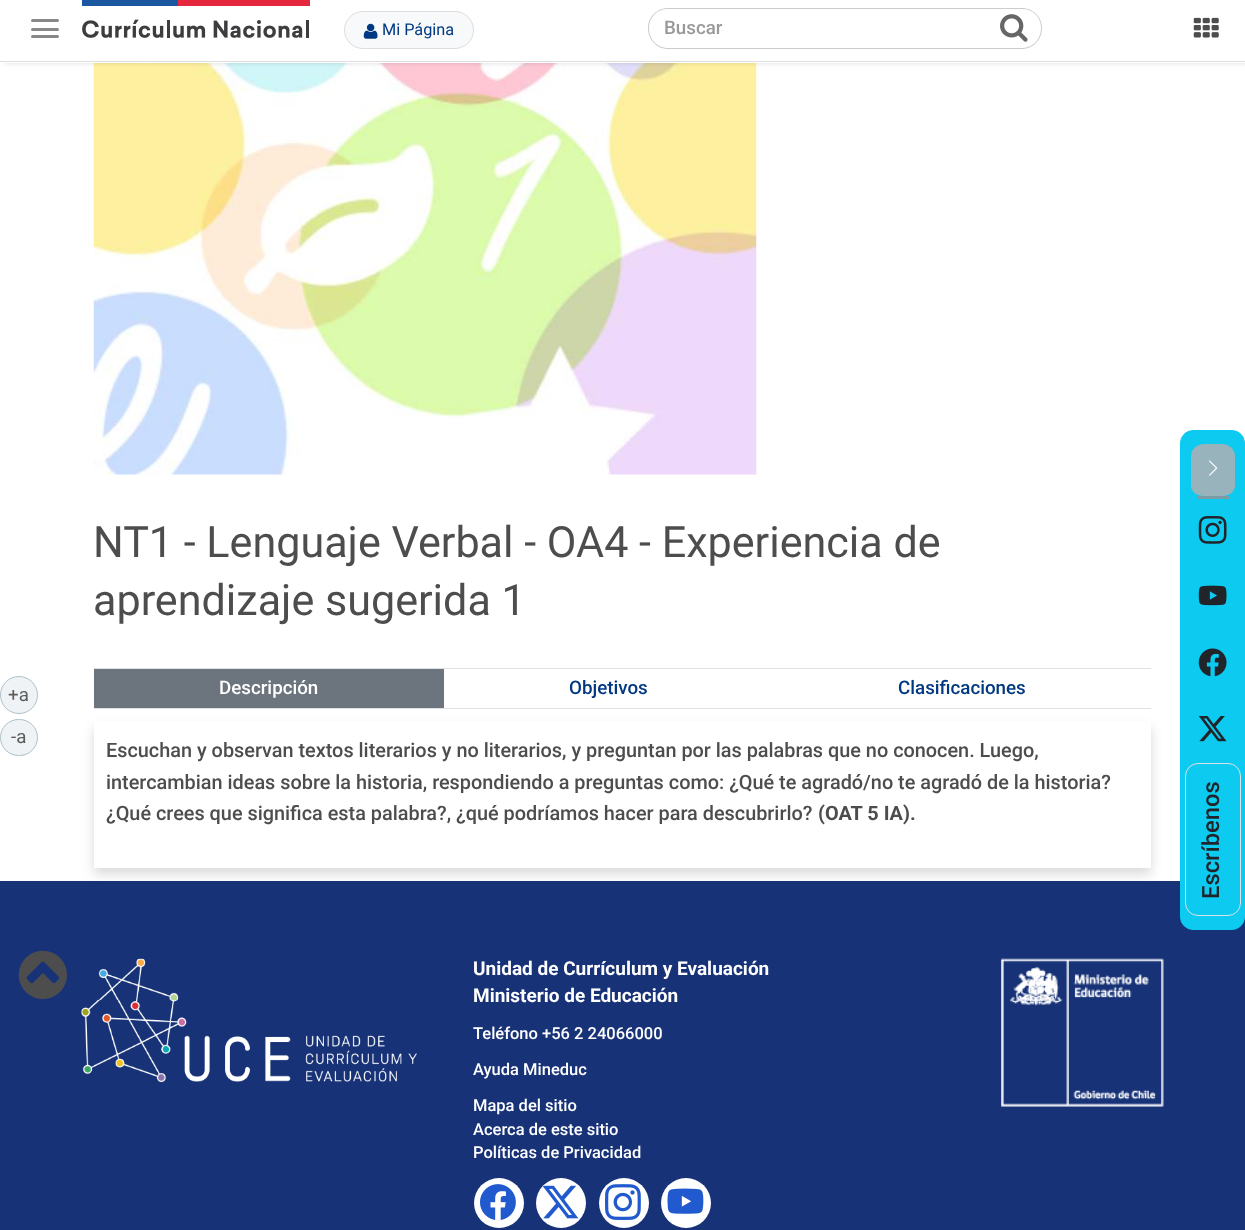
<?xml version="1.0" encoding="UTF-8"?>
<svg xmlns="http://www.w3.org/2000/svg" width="1245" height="1230">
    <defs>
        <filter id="blur1" x="-50%" y="-200%" width="200%" height="500%"><feGaussianBlur stdDeviation="2.5"/></filter>
        <clipPath id="clip1"><path d="M 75 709 H 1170 V 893 H 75 Z M 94 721 H 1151 V 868 H 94 Z" clip-rule="evenodd"/></clipPath>
        <filter id="blur2" x="-50%" y="-200%" width="200%" height="500%"><feGaussianBlur stdDeviation="6"/></filter>
    </defs>
    <rect width="100%" height="100%" fill="#FFFFFF"/>
    <circle cx="19" cy="695" r="18.5" fill="#EFF3F5" stroke="#ADC2C9"/>
    <text x="8" y="701" font-family="Roboto" font-size="18.75" fill="#5C5C5C">+a</text>
    <rect x="0.5" y="719.5" width="37" height="36" rx="18" fill="#EFF3F5" stroke="#ADC2C9"/>
    <text x="11" y="743" font-family="Roboto" font-size="18.75" fill="#5C5C5C">-a</text>
    <image x="93" y="63" width="664" height="412" href="img_05.png"/>
    <rect x="5" y="0" width="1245" height="63" fill="#000000" fill-opacity="0.15" filter="url(#blur1)"/>
    <rect x="1" y="0" width="1244" height="63" fill="#FFFFFF"/>
    <rect x="0" y="61" width="1245" height="1" fill="#DDDDDD"/>
    <rect x="31" y="19" width="28" height="3" rx="1.5" fill="#888888"/>
    <rect x="31" y="28" width="28" height="3" rx="1.5" fill="#888888"/>
    <rect x="31" y="35" width="28" height="3" rx="1.5" fill="#888888"/>
    <image x="82" y="0" width="228" height="38" href="img_01.png"/>
    <rect x="344.5" y="11.5" width="129" height="37" rx="18.5" fill="#F8F9FA" stroke="#DDDDDD"/>
    <image x="363" y="23" width="15" height="16" href="img_02.png"/>
    <text x="382" y="35" font-family="Roboto" font-size="16.25" fill="#003882">Mi Página</text>
    <path d="M 668 8 H 995 V 49 H 668 C 657 49 648 40 648 28 C 648 17 657 8 668 8 Z M 668 9 H 995 V 48 H 668 C 657 48 649 39 649 28 C 649 17 657 9 668 9 Z" fill="#CCCCCC" fill-rule="evenodd"/>
    <text x="664" y="34" font-family="Roboto" font-size="18.75" font-weight="500" fill="#999999">Buscar</text>
    <path d="M 995 8 H 1022 C 1033 8 1042 17 1042 28 C 1042 40 1033 49 1022 49 H 995 Z M 995 9 H 1022 C 1033 9 1041 17 1041 28 C 1041 39 1033 48 1022 48 H 995 Z" fill="#CCCCCC" fill-rule="evenodd"/>
    <image x="1000" y="14" width="28" height="28" href="img_03.png"/>
    <image x="1193" y="17" width="26" height="21" href="img_04.png"/>
    <text font-family="Roboto" font-size="43.1" fill="#4D4D4D">
        <tspan x="93" y="557">NT1 - Lenguaje Verbal - OA4 - Experiencia de</tspan>
        <tspan x="93" y="615">aprendizaje sugerida 1</tspan>
    </text>
    <rect x="94" y="668" width="1057" height="1" fill="#DEE2E6"/>
    <rect x="94" y="708" width="1057" height="1" fill="#DEE2E6"/>
    <rect x="94" y="669" width="350" height="39" fill="#6C757D"/>
    <text x="219" y="694" font-family="Roboto" font-size="18.75" font-weight="500" fill="#FFFFFF">Descripción</text>
    <text x="569" y="694" font-family="Roboto" font-size="18.75" font-weight="500" fill="#003882">Objetivos</text>
    <text x="898" y="694" font-family="Roboto" font-size="18.75" font-weight="500" fill="#003882">Clasificaciones</text>
    <rect x="0" y="881" width="1245" height="349" fill="#173277"/>
    <g clip-path="url(#clip1)">
        <rect x="94" y="728" width="1057" height="146" fill="#000000" fill-opacity="0.15" filter="url(#blur2)"/>
    </g>
    <text font-family="Roboto" font-size="19.88" font-weight="500" fill="#4D4D4D">
        <tspan x="106" y="757">Escuchan y observan textos literarios y no literarios, y preguntan por las palabras que no conocen. Luego,</tspan>
        <tspan x="106" y="789">intercambian ideas sobre la historia, respondiendo a preguntas como: ¿Qué te agradó/no te agradó de la historia?</tspan>
        <tspan x="106" y="820">¿Qué crees que significa esta palabra?, ¿qué podríamos hacer para descubrirlo?</tspan>
    </text>
    <text x="818" y="820" font-family="Roboto" font-size="19.88" font-weight="700" fill="#4D4D4D">(OAT 5 IA).</text>
    <rect x="1180.5" y="430.5" width="64" height="499" rx="12.5" fill="#0DCAF0" stroke="#0DCAF0"/>
    <path d="M 1204 444 H 1222 C 1229 444 1235 449 1235 456 V 486 C 1235 492 1229 496 1222 496 H 1204 C 1197 496 1191 492 1191 486 V 456 C 1191 449 1197 444 1204 444 Z" fill="#98B3BC"/>
    <rect x="1198" y="496" width="31" height="3" fill="#799CA8"/>
    <image x="1209" y="460" width="9" height="16" href="img_06.png"/>
    <image x="1198" y="516" width="29" height="28" href="img_07.png"/>
    <image x="1198" y="585" width="29" height="21" href="img_08.png"/>
    <image x="1198" y="648" width="29" height="29" href="img_09.png"/>
    <image x="1198" y="716" width="29" height="26" href="img_10.png"/>
    <rect x="1185.5" y="763.5" width="55" height="152" rx="12.5" fill="none" stroke="#DEE2E6"/>
    <text x="1219" y="899" transform="rotate(-90 1219 899)" font-family="Roboto" font-size="23.75" font-weight="500" fill="#212529">Escríbenos</text>
    <image x="18" y="950" width="49" height="49" href="img_11.png"/>
    <image x="81" y="958" width="336" height="124" href="img_12.png"/>
    <text font-family="Roboto" font-size="19" font-weight="700" fill="#FFFFFF">
        <tspan x="473" y="975">Unidad de Currículum y Evaluación</tspan>
        <tspan x="473" y="1002">Ministerio de Educación</tspan>
    </text>
    <text x="473" y="1039" font-family="Roboto" font-size="16.5" font-weight="500" fill="#FFFFFF">Teléfono +56 2 24066000</text>
    <text x="473" y="1075" font-family="Roboto" font-size="16.5" font-weight="500" fill="#FFFFFF">Ayuda Mineduc</text>
    <text font-family="Roboto" font-size="16.5" font-weight="500" fill="#FFFFFF">
        <tspan x="473" y="1111">Mapa del sitio</tspan>
        <tspan x="473" y="1135">Acerca de este sitio</tspan>
        <tspan x="473" y="1158">Políticas de Privacidad</tspan>
    </text>
    <circle cx="499" cy="1203" r="25" fill="#FFFFFF"/>
    <image x="480" y="1184" width="36" height="36" href="img_13.png"/>
    <circle cx="561" cy="1203" r="25" fill="#FFFFFF"/>
    <image x="542" y="1185" width="37" height="34" href="img_14.png"/>
    <circle cx="624" cy="1203" r="25" fill="#FFFFFF"/>
    <image x="605" y="1184" width="36" height="36" href="img_15.png"/>
    <circle cx="686" cy="1203" r="25" fill="#FFFFFF"/>
    <image x="667" y="1188" width="37" height="26" href="img_16.png"/>
    <image x="1001" y="958" width="163" height="149" href="img_17.png"/>
</svg>
